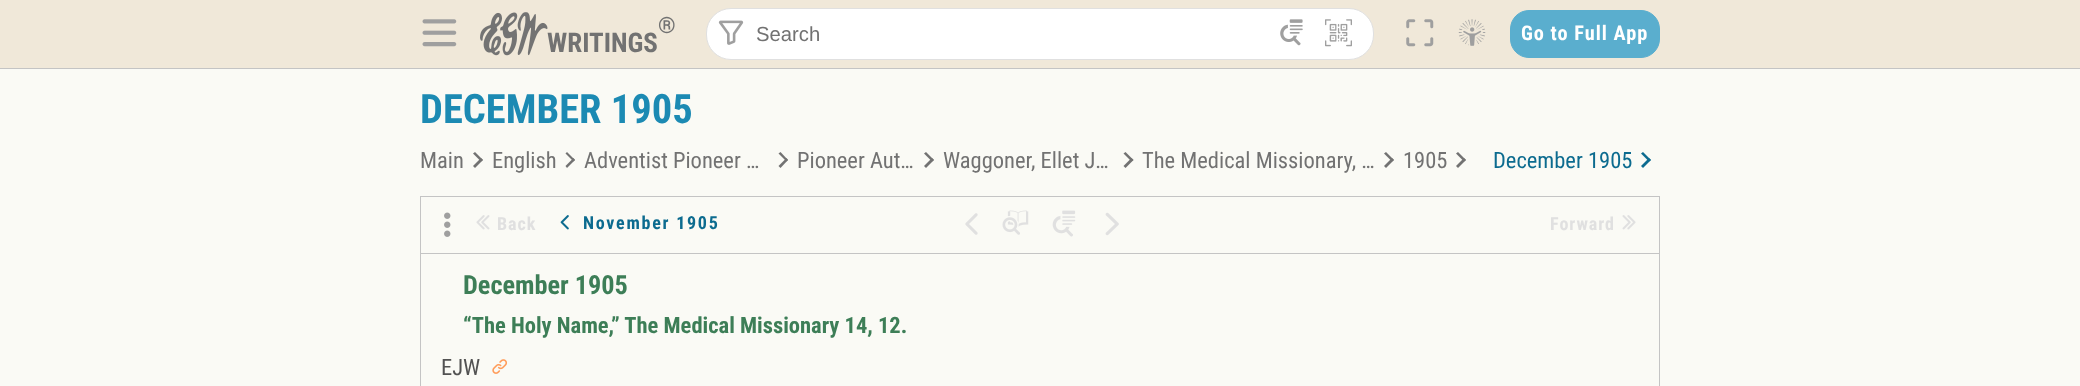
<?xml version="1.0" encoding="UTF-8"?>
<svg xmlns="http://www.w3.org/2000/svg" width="2080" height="386">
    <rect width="100%" height="100%" fill="#FAFAF5"/>
    <rect x="0" y="0" width="2080" height="68" fill="#F0E8D9"/>
    <rect x="0" y="68" width="2080" height="1" fill="#C4C4C4"/>
    <image x="422" y="19" width="35" height="28" href="img_01.png"/>
    <text x="547" y="52" font-family="Roboto Condensed" font-size="27" font-weight="700" fill="#727272">WRITINGS</text>
    <image x="480" y="12" width="68" height="44" href="img_02.png"/>
    <text x="658" y="33" font-family="Roboto Condensed" font-size="22.5" font-weight="700" fill="#727272">®</text>
    <rect x="706.5" y="8.5" width="667" height="51" rx="24.5" fill="#FFFFFF" stroke="#E0E0E0"/>
    <image x="718" y="20" width="26" height="25" href="img_03.png"/>
    <text x="756" y="41" font-family="Liberation Sans" font-size="20.25" fill="#727272">Search</text>
    <image x="1280" y="19" width="23" height="27" href="img_04.png"/>
    <image x="1325" y="19" width="27" height="28" href="img_05.png"/>
    <image x="1406" y="19" width="28" height="28" href="img_06.png"/>
    <image x="1458" y="19" width="28" height="27" href="img_07.png"/>
    <rect x="1510.5" y="10.5" width="149" height="47" rx="18.5" fill="#5AAECE" stroke="#5AAECE"/>
    <text x="1521" y="40" font-family="Roboto Condensed" font-size="20.25" font-weight="700" letter-spacing="1" fill="#FFFFFF">Go to Full App</text>
    <text x="420" y="123" font-family="Roboto Condensed" font-size="40.5" font-weight="700" fill="#1C8AB3">DECEMBER 1905</text>
    <text x="420" y="168" font-family="Roboto Condensed" font-size="22.5" fill="#727272">Main</text>
    <path d="M 473 153.5 L 475 152 L 483 160 L 481 161.5 Z" fill="#727272"/>
    <path d="M 473 166 L 481 158 L 483 160 L 475 168 Z" fill="#727272"/>
    <text x="492" y="168" font-family="Roboto Condensed" font-size="22.5" fill="#727272">English</text>
    <path d="M 565.5 153.5 L 567 152 L 575 160 L 573.5 161.5 Z" fill="#727272"/>
    <path d="M 565.5 166 L 573.5 158 L 575 160 L 567 168 Z" fill="#727272"/>
    <text x="584" y="168" font-family="Roboto Condensed" font-size="22.5" fill="#727272">Adventist Pioneer …</text>
    <path d="M 778.5 153.5 L 780.5 152 L 788 160 L 786.5 161.5 Z" fill="#727272"/>
    <path d="M 778.5 166 L 786.5 158 L 788 160 L 780.5 168 Z" fill="#727272"/>
    <text x="797" y="168" font-family="Roboto Condensed" font-size="22.5" fill="#727272">Pioneer Aut…</text>
    <path d="M 924 153.5 L 926 152 L 934 160 L 932 161.5 Z" fill="#727272"/>
    <path d="M 924 166 L 932 158 L 934 160 L 926 168 Z" fill="#727272"/>
    <text x="943" y="168" font-family="Roboto Condensed" font-size="22.5" fill="#727272">Waggoner, Ellet J…</text>
    <path d="M 1123.5 153.5 L 1125.5 152 L 1133.5 160 L 1131.5 161.5 Z" fill="#727272"/>
    <path d="M 1123.5 166 L 1131.5 158 L 1133.5 160 L 1125.5 168 Z" fill="#727272"/>
    <text x="1142" y="168" font-family="Roboto Condensed" font-size="22.5" fill="#727272">The Medical Missionary, …</text>
    <path d="M 1384 153.5 L 1386 152 L 1394 160 L 1392 161.5 Z" fill="#727272"/>
    <path d="M 1384 166 L 1392 158 L 1394 160 L 1386 168 Z" fill="#727272"/>
    <text x="1403" y="168" font-family="Roboto Condensed" font-size="22.5" fill="#727272">1905</text>
    <path d="M 1456 153.5 L 1458 152 L 1466 160 L 1464 161.5 Z" fill="#727272"/>
    <path d="M 1456 166 L 1464 158 L 1466 160 L 1458 168 Z" fill="#727272"/>
    <text x="1493" y="168" font-family="Roboto Condensed" font-size="22.5" fill="#0C6B8F">December 1905</text>
    <path d="M 1641 153.5 L 1643 152 L 1651 160 L 1649 161.5 Z" fill="#0C6B8F"/>
    <path d="M 1641 166 L 1649 158 L 1651 160 L 1643 168 Z" fill="#0C6B8F"/>
    <rect x="420.5" y="196.5" width="1239" height="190" fill="none" stroke="#C4C4C4"/>
    <rect x="421" y="253" width="1238" height="1" fill="#C4C4C4"/>
    <image x="444" y="212" width="7" height="25" href="img_08.png"/>
    <image x="476" y="215" width="14" height="15" href="img_09.png"/>
    <text x="497" y="230" font-family="Roboto Condensed" font-size="18" font-weight="700" letter-spacing="1" fill="#E0E0E0">Back</text>
    <image x="560" y="215" width="9" height="15" href="img_10.png"/>
    <text x="583" y="229" font-family="Roboto Condensed" font-size="18" font-weight="700" letter-spacing="1.75" fill="#0C6B8F">November 1905</text>
    <image x="965" y="213" width="13" height="22" href="img_11.png"/>
    <image x="1002" y="210" width="27" height="25" href="img_12.png"/>
    <image x="1052" y="210" width="24" height="27" href="img_13.png"/>
    <image x="1105" y="212" width="14" height="24" href="img_14.png"/>
    <text x="1550" y="230" font-family="Roboto Condensed" font-size="18" font-weight="700" letter-spacing="1" fill="#E0E0E0">Forward</text>
    <image x="1622" y="215" width="14" height="15" href="img_15.png"/>
    <text x="463" y="294" font-family="Roboto Condensed" font-size="26.25" font-weight="700" fill="#3D7E57">December 1905</text>
    <text x="463" y="333" font-family="Roboto Condensed" font-size="22.5" font-weight="700" fill="#3D7E57">“The Holy Name,” The Medical Missionary 14, 12.</text>
    <text x="441" y="375" font-family="Roboto Condensed" font-size="22.5" fill="#525252">EJW</text>
    <image x="492" y="359" width="15" height="15" href="img_16.png"/>
</svg>
